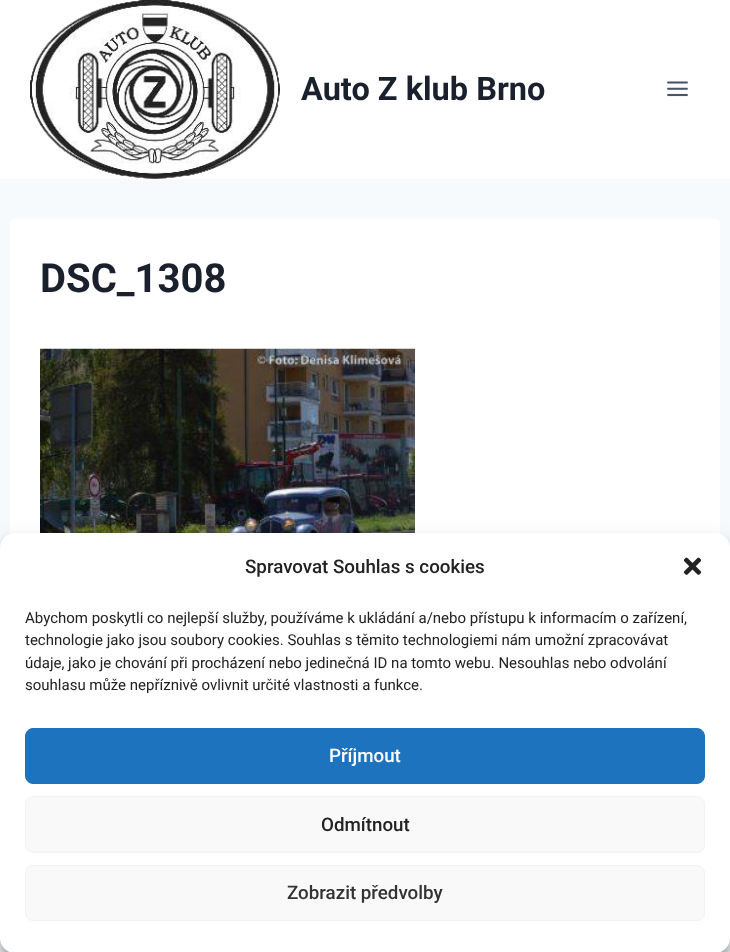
<?xml version="1.0" encoding="UTF-8"?>
<svg xmlns="http://www.w3.org/2000/svg" width="730" height="952">
    <defs>
        <filter id="blur1" x="-50%" y="-200%" width="200%" height="500%"><feGaussianBlur stdDeviation="4"/></filter>
        <filter id="blur2" x="-50%" y="-200%" width="200%" height="500%"><feGaussianBlur stdDeviation="12.5"/></filter>
    </defs>
    <rect width="100%" height="100%" fill="#F7FAFC"/>
    <rect x="0" y="0" width="730" height="179" fill="#FFFFFF"/>
    <image x="30" y="0" width="250" height="179" href="img_01.png"/>
    <text x="301" y="100" font-family="Roboto" font-size="32.5" font-weight="700" fill="#1A202C">Auto Z klub Brno</text>
    <image x="667" y="81" width="21" height="16" href="img_02.png"/>
    <rect x="10" y="219" width="710" height="496" rx="5" fill="#FFFFFF"/>
    <text x="40" y="292" font-family="Roboto" font-size="40" font-weight="700" fill="#1A202C">DSC_1308</text>
    <image x="40" y="348" width="375" height="185" href="img_03.png"/>
    <rect x="0" y="540" width="730" height="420" rx="15" fill="#000000" fill-opacity="0.23" filter="url(#blur1)"/>
    <rect x="0" y="545" width="730" height="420" rx="15" fill="#000000" fill-opacity="0.19" filter="url(#blur2)"/>
    <rect x="0" y="533" width="730" height="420" rx="15" fill="#FFFFFF"/>
    <text x="245" y="573" font-family="Roboto" font-size="18.75" font-weight="500" fill="#222222">Spravovat Souhlas s cookies</text>
    <image x="683" y="557" width="19" height="18" href="img_04.png"/>
    <text font-family="Roboto" font-size="15" fill="#222222">
        <tspan x="25" y="623">Abychom poskytli co nejlepší služby, používáme k ukládání a/nebo přístupu k informacím o zařízení,</tspan>
        <tspan x="25" y="645">technologie jako jsou soubory cookies. Souhlas s těmito technologiemi nám umožní zpracovávat</tspan>
        <tspan x="25" y="668">údaje, jako je chování při procházení nebo jedinečná ID na tomto webu. Nesouhlas nebo odvolání</tspan>
        <tspan x="25" y="690">souhlasu může nepříznivě ovlivnit určité vlastnosti a funkce.</tspan>
    </text>
    <rect x="25.5" y="728.5" width="679" height="55" rx="7.5" fill="#1E73BE" stroke="#1E73BE"/>
    <text x="329" y="762" font-family="Roboto" font-size="18.75" font-weight="500" fill="#FFFFFF">Příjmout</text>
    <rect x="25.5" y="796.5" width="679" height="56" rx="7.5" fill="#F9F9F9" stroke="#F2F2F2"/>
    <text x="321" y="831" font-family="Roboto" font-size="18.75" font-weight="500" fill="#222222">Odmítnout</text>
    <rect x="25.5" y="865.5" width="679" height="55" rx="7.5" fill="#F9F9F9" stroke="#F2F2F2"/>
    <text x="287" y="899" font-family="Roboto" font-size="18.75" font-weight="500" fill="#333333">Zobrazit předvolby</text>
</svg>
